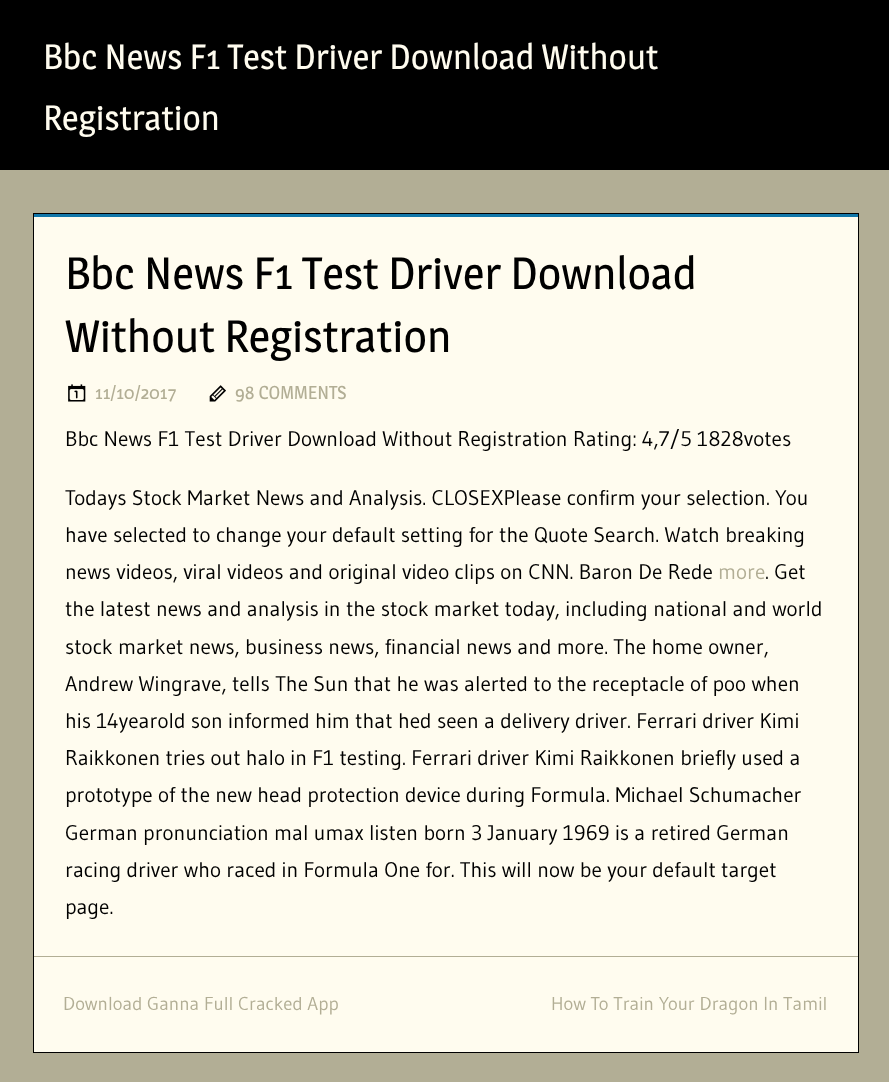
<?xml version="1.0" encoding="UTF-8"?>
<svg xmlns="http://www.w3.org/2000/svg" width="889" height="1082">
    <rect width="100%" height="100%" fill="#B2AE95"/>
    <rect x="0" y="0" width="889" height="170" fill="#000000"/>
    <text font-family="Magra" font-size="35" fill="#FFFCEF">
        <tspan x="43" y="69">Bbc News F1 Test Driver Download Without</tspan>
        <tspan x="43" y="130">Registration</tspan>
    </text>
    <rect x="34" y="217" width="824" height="835" fill="#FFFCEF"/>
    <rect x="34" y="214" width="824" height="3" fill="#1177AA"/>
    <rect x="33.5" y="213.5" width="825" height="839" fill="none" stroke="#000000"/>
    <text font-family="Magra" font-size="45" fill="#000000">
        <tspan x="65" y="289">Bbc News F1 Test Driver Download</tspan>
        <tspan x="65" y="352">Without Registration</tspan>
    </text>
    <image x="68" y="384" width="18" height="18" href="img_01.png"/>
    <text x="95" y="399" font-family="Magra" font-size="18.75" fill="#B2AE95">11/10/2017</text>
    <image x="209" y="385" width="17" height="17" href="img_02.png"/>
    <text x="235" y="399" font-family="Magra" font-size="18.75" fill="#B2AE95">98 COMMENTS</text>
    <text x="65" y="446" font-family="Gudea" font-size="21.25" fill="#000000">Bbc News F1 Test Driver Download Without Registration Rating: 4,7/5 1828votes</text>
    <text font-family="Gudea" font-size="21.25" fill="#000000">
        <tspan x="65" y="505">Todays Stock Market News and Analysis. CLOSEXPlease confirm your selection. You</tspan>
        <tspan x="65" y="542">have selected to change your default setting for the Quote Search. Watch breaking</tspan>
        <tspan x="65" y="579">news videos, viral videos and original video clips on CNN. Baron De Rede</tspan>
    </text>
    <text x="718" y="579" font-family="Gudea" font-size="21.25" fill="#B2AE95">more</text>
    <text x="765" y="579" font-family="Gudea" font-size="21.25" fill="#000000">. Get</text>
    <text font-family="Gudea" font-size="21.25" fill="#000000">
        <tspan x="65" y="616">the latest news and analysis in the stock market today, including national and world</tspan>
        <tspan x="65" y="654">stock market news, business news, financial news and more. The home owner,</tspan>
        <tspan x="65" y="691">Andrew Wingrave, tells The Sun that he was alerted to the receptacle of poo when</tspan>
        <tspan x="65" y="728">his 14yearold son informed him that hed seen a delivery driver. Ferrari driver Kimi</tspan>
        <tspan x="65" y="765">Raikkonen tries out halo in F1 testing. Ferrari driver Kimi Raikkonen briefly used a</tspan>
        <tspan x="65" y="802">prototype of the new head protection device during Formula. Michael Schumacher</tspan>
        <tspan x="65" y="840">German pronunciation mal umax listen born 3 January 1969 is a retired German</tspan>
        <tspan x="65" y="877">racing driver who raced in Formula One for. This will now be your default target</tspan>
        <tspan x="65" y="914">page.</tspan>
    </text>
    <rect x="34" y="956" width="824" height="1" fill="#B2AE95"/>
    <text x="63" y="1010" font-family="Gudea" font-size="18.75" fill="#B2AE95">Download Ganna Full Cracked App</text>
    <text x="551" y="1010" font-family="Gudea" font-size="18.75" fill="#B2AE95">How To Train Your Dragon In Tamil</text>
</svg>
